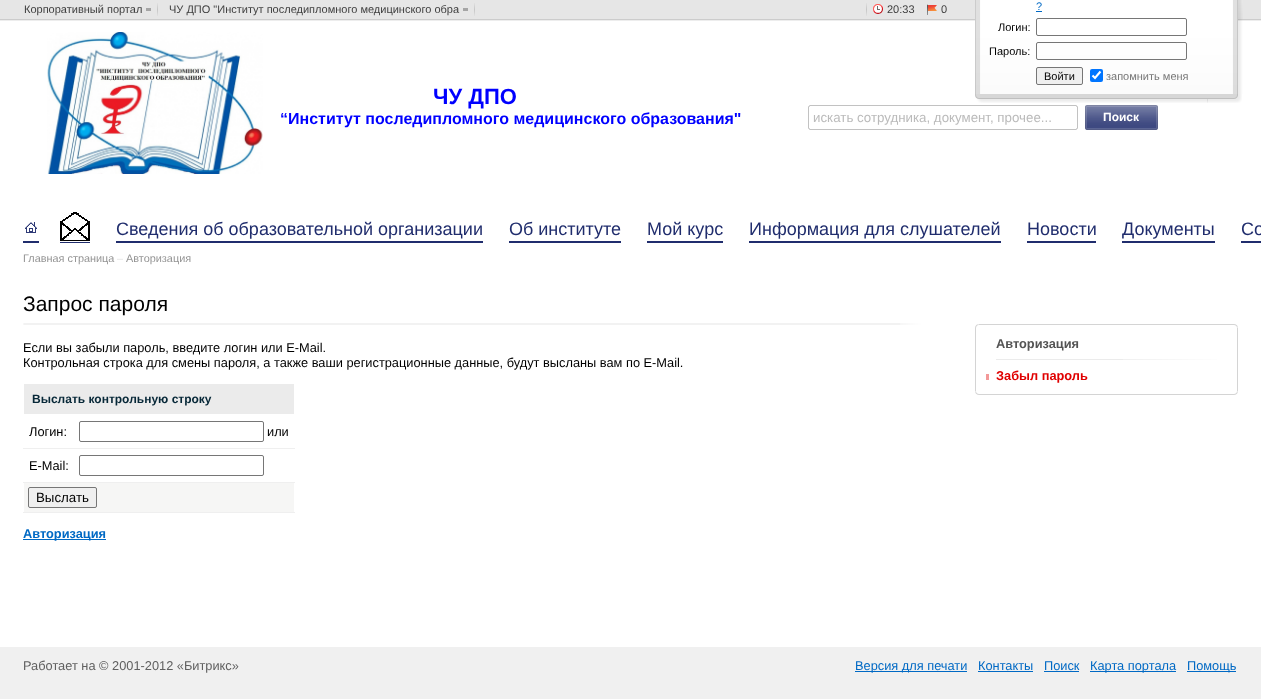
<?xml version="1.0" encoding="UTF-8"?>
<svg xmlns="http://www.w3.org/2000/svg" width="1261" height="699">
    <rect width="100%" height="100%" fill="#FFFFFF"/>
    <rect x="0" y="0" width="1261" height="19" fill="#E6E6E6"/>
    <image x="0" y="19" width="1261" height="2" href="img_13.png"/>
    <image x="975" y="0" width="268" height="94" href="img_01.png"/>
    <text x="1036" y="10" font-family="Liberation Sans" font-size="11" fill="#0069C4">?</text>
    <rect x="1036" y="11" width="6" height="1" fill="#0069C4"/>
    <text x="998" y="31" font-family="Liberation Sans" font-size="11" fill="#000000">Логин:</text>
    <rect x="1036.5" y="18.5" width="150" height="17" rx="1.5" fill="none" stroke="#767676"/>
    <text x="989" y="55" font-family="Liberation Sans" font-size="11" fill="#000000">Пароль:</text>
    <rect x="1036.5" y="42.5" width="150" height="17" rx="1.5" fill="none" stroke="#767676"/>
    <rect x="1036.5" y="67.5" width="46" height="17" rx="1.5" fill="#EFEFEF" stroke="#767676"/>
    <text x="1044" y="80" font-family="Liberation Sans" font-size="11" fill="#000000">Войти</text>
    <rect x="1090" y="69" width="13" height="13" rx="2" fill="#0075FF"/>
    <path d="M 1092.5 75.5 L 1095 78 L 1100.5 71.5" fill="none" stroke="#FFFFFF" stroke-width="2.1"/>
    <text x="1106" y="80" font-family="Liberation Sans" font-size="11" fill="#777777">запомнить меня</text>
    <image x="975" y="94" width="267" height="9" href="img_02.png"/>
    <image x="47" y="32" width="216" height="142" href="img_03.png"/>
    <text x="433" y="104" font-family="Liberation Sans" font-size="22" font-weight="700" fill="#0000FF">ЧУ ДПО</text>
    <text x="280" y="124" font-family="Liberation Sans" font-size="16" font-weight="700" fill="#0000FF">“Институт последипломного медицинского образования"</text>
    <rect x="809" y="105" width="268" height="1" fill="#C2C2C2"/>
    <rect x="1076" y="105" width="1" height="1" fill="#D4D4D4"/>
    <rect x="809" y="105" width="1" height="1" fill="#D4D4D4"/>
    <rect x="1076" y="106" width="2" height="1" fill="#D4D4D4"/>
    <rect x="808" y="106" width="2" height="1" fill="#D4D4D4"/>
    <rect x="1077" y="107" width="1" height="21" fill="#C2C2C2"/>
    <rect x="808" y="107" width="1" height="21" fill="#C2C2C2"/>
    <text x="813" y="122" font-family="Liberation Sans" font-size="13.3" fill="#BBBBBB">искать сотрудника, документ, прочее...</text>
    <rect x="1076" y="128" width="2" height="1" fill="#D4D4D4"/>
    <rect x="808" y="128" width="2" height="1" fill="#D4D4D4"/>
    <rect x="809" y="129" width="268" height="1" fill="#C2C2C2"/>
    <rect x="1076" y="129" width="1" height="1" fill="#D4D4D4"/>
    <rect x="809" y="129" width="1" height="1" fill="#D4D4D4"/>
    <image x="1085" y="105" width="73" height="25" href="img_04.png"/>
    <text x="1103" y="121" font-family="Liberation Sans" font-size="12" font-weight="700" fill="#FFFFFF">Поиск</text>
    <rect x="23" y="241" width="16" height="2" fill="#202D6D"/>
    <image x="25" y="222" width="12" height="11" href="img_05.png"/>
    <rect x="60" y="242" width="30" height="1" fill="#202D6D"/>
    <image x="60" y="212" width="30" height="30" href="img_06.png"/>
    <rect x="116" y="241" width="367" height="2" fill="#202D6D"/>
    <text x="116" y="235" font-family="Liberation Sans" font-size="18" fill="#202D6D">Сведения об образовательной организации</text>
    <rect x="509" y="241" width="112" height="2" fill="#202D6D"/>
    <text x="509" y="235" font-family="Liberation Sans" font-size="18" fill="#202D6D">Об институте</text>
    <rect x="647" y="241" width="76" height="2" fill="#202D6D"/>
    <text x="647" y="235" font-family="Liberation Sans" font-size="18" fill="#202D6D">Мой курс</text>
    <rect x="749" y="241" width="252" height="2" fill="#202D6D"/>
    <text x="749" y="235" font-family="Liberation Sans" font-size="18" fill="#202D6D">Информация для слушателей</text>
    <rect x="1027" y="241" width="69" height="2" fill="#202D6D"/>
    <text x="1027" y="235" font-family="Liberation Sans" font-size="18" fill="#202D6D">Новости</text>
    <rect x="1122" y="241" width="93" height="2" fill="#202D6D"/>
    <text x="1122" y="235" font-family="Liberation Sans" font-size="18" fill="#202D6D">Документы</text>
    <rect x="1241" y="241" width="20" height="2" fill="#202D6D"/>
    <text x="1241" y="235" font-family="Liberation Sans" font-size="18" fill="#202D6D">Со</text>
    <text x="23" y="262" font-family="Liberation Sans" font-size="10.9" fill="#949494">Главная страница</text>
    <text x="117" y="262" font-family="Liberation Sans" font-size="10.9" fill="#E4E4E4">–</text>
    <text x="126" y="262" font-family="Liberation Sans" font-size="10.9" fill="#949494">Авторизация</text>
    <text x="23" y="311" font-family="Liberation Sans" font-size="21" fill="#000000">Запрос пароля</text>
    <rect x="23" y="323" width="902" height="2" fill="#F2F2F2"/>
    <image x="900" y="323" width="45" height="2" href="img_07.png"/>
    <rect x="23" y="323" width="1" height="2" fill="#F7F7F7"/>
    <text font-family="Liberation Sans" font-size="12.8" fill="#000000">
        <tspan x="23" y="352">Если вы забыли пароль, введите логин или E-Mail.</tspan>
        <tspan x="23" y="367">Контрольная строка для смены пароля, а также ваши регистрационные данные, будут высланы вам по E-Mail.</tspan>
    </text>
    <rect x="24" y="384" width="270" height="30" fill="#EBEBEB"/>
    <text x="32" y="403" font-family="Liberation Sans" font-size="12" font-weight="700" fill="#072838">Выслать контрольную строку</text>
    <text x="29" y="436" font-family="Liberation Sans" font-size="12.8" fill="#000000">Логин:</text>
    <rect x="79.5" y="421.5" width="184" height="20" rx="1.5" fill="none" stroke="#767676"/>
    <text x="267" y="436" font-family="Liberation Sans" font-size="12.8" fill="#000000">или</text>
    <rect x="23" y="448" width="272" height="1" fill="#EFEFEF"/>
    <rect x="79.5" y="455.5" width="184" height="20" rx="1.5" fill="none" stroke="#767676"/>
    <text x="29" y="470" font-family="Liberation Sans" font-size="12.8" fill="#000000">E-Mail:</text>
    <rect x="24" y="483" width="270" height="29" fill="#F6F6F5"/>
    <rect x="23" y="482" width="272" height="1" fill="#EFEFEF"/>
    <rect x="23" y="512" width="272" height="1" fill="#EFEFEF"/>
    <rect x="28.5" y="487.5" width="68" height="20" rx="1.5" fill="#EFEFEF" stroke="#767676"/>
    <text x="36" y="502" font-family="Liberation Sans" font-size="13.3" fill="#000000">Выслать</text>
    <rect x="23" y="539" width="83" height="1" fill="#0069C4"/>
    <text x="23" y="538" font-family="Liberation Sans" font-size="12.8" font-weight="700" fill="#0069C4">Авторизация</text>
    <rect x="975" y="324" width="263" height="1" fill="#D4D4D4"/>
    <image x="975" y="324" width="4" height="4" href="img_08.png"/>
    <image x="1234" y="324" width="4" height="4" href="img_09.png"/>
    <rect x="1237" y="328" width="1" height="63" fill="#D4D4D4"/>
    <rect x="975" y="328" width="1" height="63" fill="#D4D4D4"/>
    <text x="996" y="348" font-family="Liberation Sans" font-size="12.8" font-weight="700" fill="#545454">Авторизация</text>
    <rect x="996" y="359" width="127" height="1" fill="#EBEBEB"/>
    <image x="1123" y="359" width="94" height="1" href="img_10.png"/>
    <rect x="986" y="374" width="3" height="6" fill="#F39999"/>
    <text x="996" y="380" font-family="Liberation Sans" font-size="12.8" font-weight="700" fill="#E00000">Забыл пароль</text>
    <rect x="975" y="394" width="263" height="1" fill="#D4D4D4"/>
    <image x="975" y="391" width="4" height="4" href="img_11.png"/>
    <image x="1234" y="391" width="4" height="4" href="img_12.png"/>
    <text x="24" y="13" font-family="Liberation Sans" font-size="11" fill="#3E3E3E">Корпоративный портал</text>
    <rect x="146" y="8" width="5" height="3" fill="#A5A5A5"/>
    <image x="157" y="3" width="1" height="13" href="img_14.png"/>
    <text x="169" y="13" font-family="Liberation Sans" font-size="11" fill="#3E3E3E">ЧУ ДПО "Институт последипломного медицинского обра</text>
    <rect x="463" y="8" width="5" height="3" fill="#A5A5A5"/>
    <image x="474" y="3" width="1" height="13" href="img_14.png"/>
    <image x="866" y="3" width="1" height="13" href="img_14.png"/>
    <image x="873" y="4" width="10" height="10" href="img_15.png"/>
    <text x="887" y="13" font-family="Liberation Sans" font-size="11" fill="#3E3E3E">20:33</text>
    <image x="927" y="4" width="10" height="11" href="img_16.png"/>
    <text x="941" y="13" font-family="Liberation Sans" font-size="11" fill="#3E3E3E">0</text>
    <rect x="0" y="647" width="1261" height="52" fill="#F0F0F0"/>
    <text x="23" y="670" font-family="Liberation Sans" font-size="12.8" fill="#606060">Работает на © 2001-2012 «Битрикс»</text>
    <rect x="855" y="671" width="112" height="1" fill="#0069C4"/>
    <text x="855" y="670" font-family="Liberation Sans" font-size="12.8" fill="#0069C4">Версия для печати</text>
    <text x="978" y="670" font-family="Liberation Sans" font-size="12.8" fill="#0069C4">Контакты</text>
    <rect x="978" y="671" width="55" height="1" fill="#0069C4"/>
    <text x="1044" y="670" font-family="Liberation Sans" font-size="12.8" fill="#0069C4">Поиск</text>
    <rect x="1044" y="671" width="35" height="1" fill="#0069C4"/>
    <rect x="1090" y="671" width="86" height="1" fill="#0069C4"/>
    <text x="1090" y="670" font-family="Liberation Sans" font-size="12.8" fill="#0069C4">Карта портала</text>
    <rect x="1187" y="671" width="49" height="1" fill="#0069C4"/>
    <text x="1187" y="670" font-family="Liberation Sans" font-size="12.8" fill="#0069C4">Помощь</text>
</svg>
